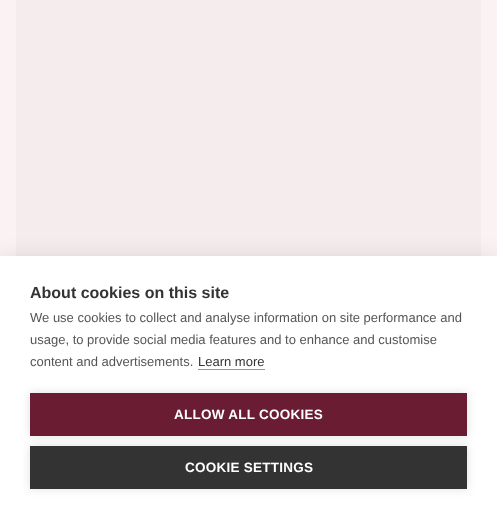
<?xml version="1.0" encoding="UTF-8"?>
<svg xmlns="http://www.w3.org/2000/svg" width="497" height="514">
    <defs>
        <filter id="blur1" x="-50%" y="-200%" width="200%" height="500%"><feGaussianBlur stdDeviation="10"/></filter>
        <filter id="blur2" x="-50%" y="-200%" width="200%" height="500%"><feGaussianBlur stdDeviation="5"/></filter>
    </defs>
    <rect width="100%" height="100%" fill="#FBF2F4"/>
    <rect x="16" y="0" width="465" height="256" fill="#F5ECEE"/>
    <rect x="0" y="256" width="497" height="258" fill="#000000" fill-opacity="0.1" filter="url(#blur1)"/>
    <rect x="0" y="256" width="497" height="258" fill="#FFFFFF"/>
    <text x="30" y="298" font-family="Liberation Sans" font-size="16" font-weight="700" fill="#333333">About cookies on this site</text>
    <text font-family="Liberation Sans" font-size="13" fill="#555555">
        <tspan x="30" y="322">We use cookies to collect and analyse information on site performance and</tspan>
        <tspan x="30" y="344">usage, to provide social media features and to enhance and customise</tspan>
        <tspan x="30" y="366">content and advertisements.</tspan>
    </text>
    <text x="198" y="366" font-family="Liberation Sans" font-size="13" fill="#333333">Learn more</text>
    <rect x="198" y="369" width="67" height="1" fill="#999999"/>
    <rect x="30" y="393" width="437" height="43" fill="#000000" fill-opacity="0.12" filter="url(#blur2)"/>
    <rect x="30" y="393" width="437" height="43" fill="#691C32"/>
    <text x="174" y="419" font-family="Liberation Sans" font-size="13.5" font-weight="700" letter-spacing="0.25" fill="#FFFFFF">ALLOW ALL COOKIES</text>
    <rect x="30" y="446" width="437" height="43" fill="#000000" fill-opacity="0.12" filter="url(#blur2)"/>
    <rect x="30" y="446" width="437" height="43" fill="#333333"/>
    <text x="185" y="472" font-family="Liberation Sans" font-size="13.5" font-weight="700" letter-spacing="0.25" fill="#FFFFFF">COOKIE SETTINGS</text>
</svg>
